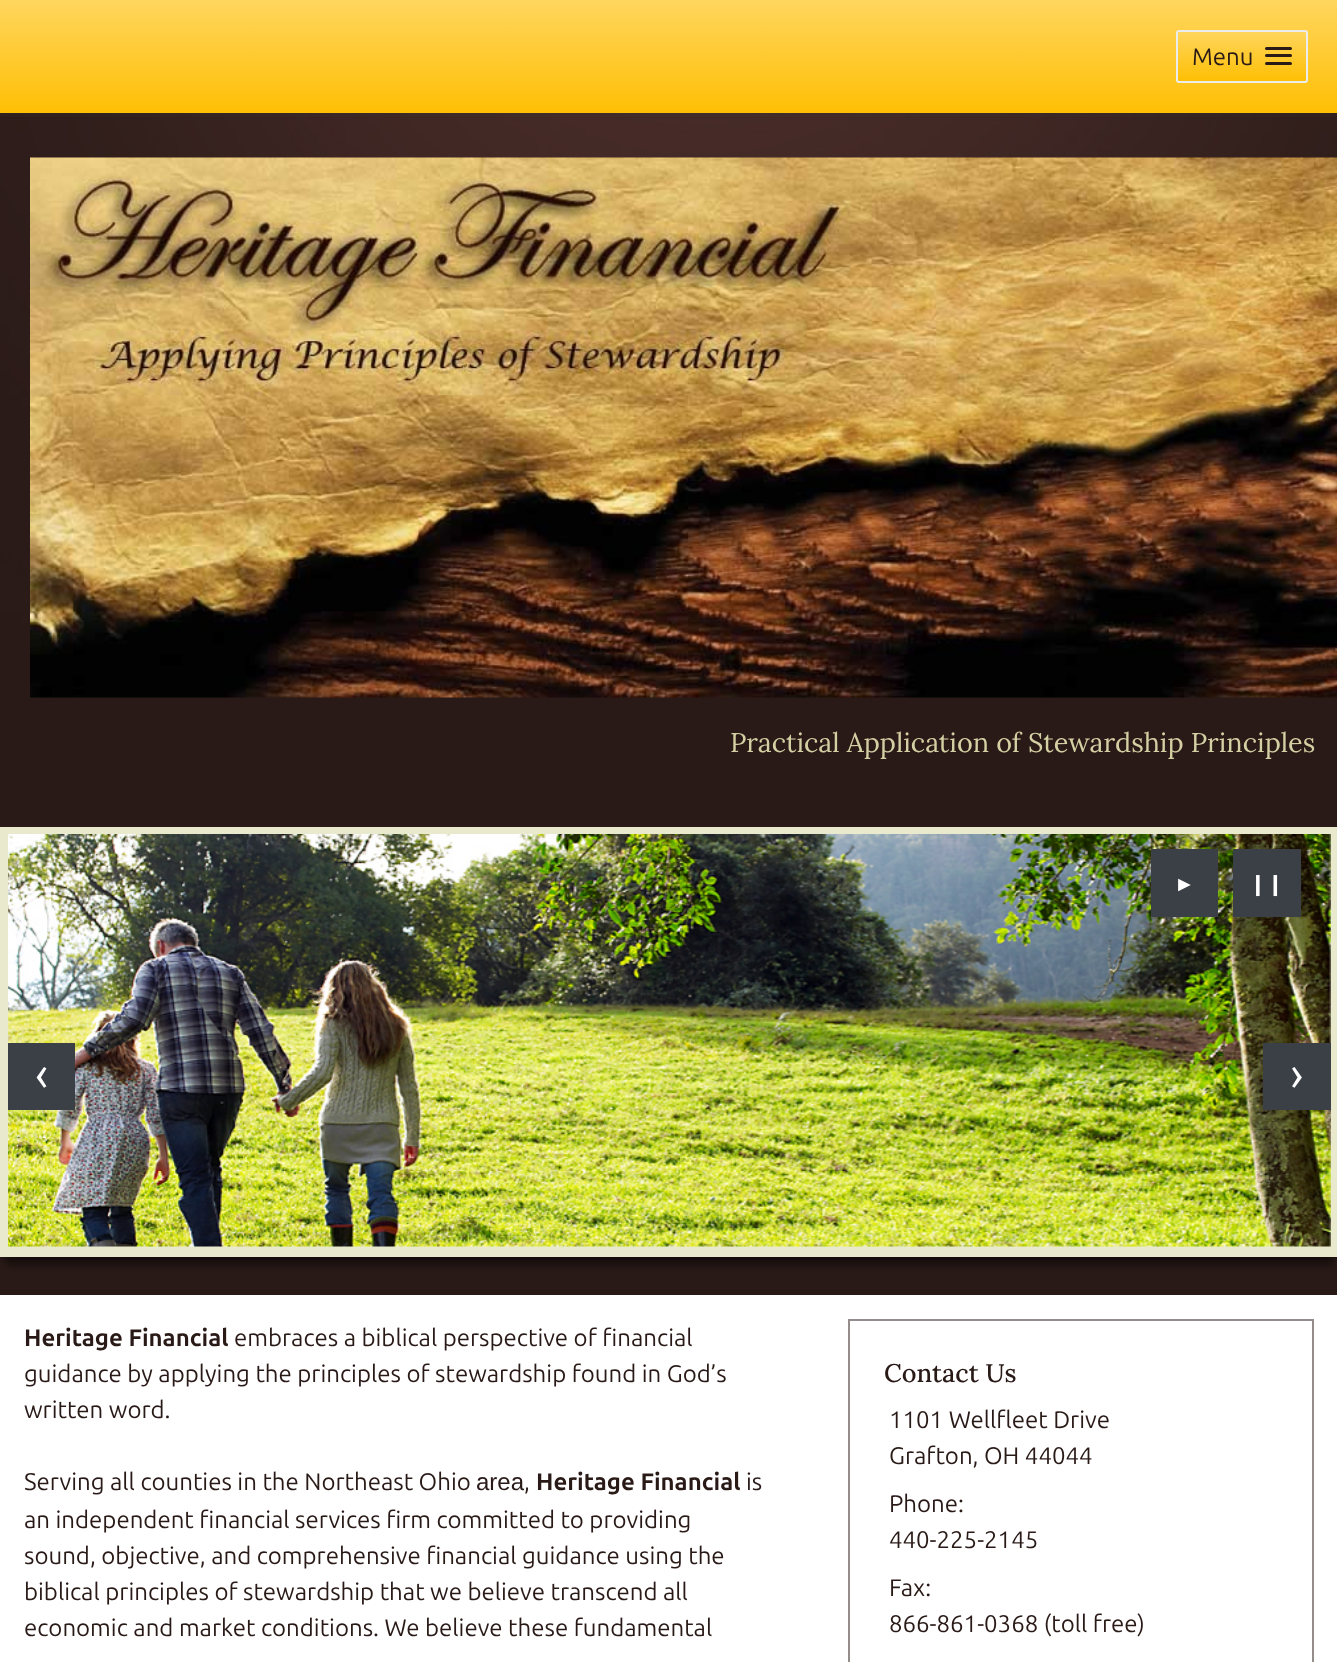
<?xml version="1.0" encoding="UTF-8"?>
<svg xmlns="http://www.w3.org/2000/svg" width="1337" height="1662">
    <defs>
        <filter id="blur1" x="-50%" y="-200%" width="200%" height="500%"><feGaussianBlur stdDeviation="3"/></filter>
        <linearGradient id="g1" gradientUnits="userSpaceOnUse" x1="669" y1="0" x2="669" y2="113"><stop offset="0" stop-color="#FFD65E"/><stop offset="1" stop-color="#FEBF04"/></linearGradient>
        <clipPath id="clip1"><rect x="1176" y="30" width="132" height="53" rx="3"/></clipPath>
        <linearGradient id="g2" gradientUnits="userSpaceOnUse" x1="1242" y1="31" x2="1242" y2="81"><stop offset="0" stop-color="#FFD65E"/><stop offset="1" stop-color="#FEBF04"/></linearGradient>
        <filter id="blur2" x="-50%" y="-200%" width="200%" height="500%"><feGaussianBlur stdDeviation="4"/></filter>
    </defs>
    <rect width="100%" height="100%" fill="#291A17"/>
    <image x="0" y="113" width="1337" height="549" href="img_01.png"/>
    <rect x="0" y="2" width="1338" height="112" fill="#323232" fill-opacity="0.4" filter="url(#blur1)"/>
    <rect x="0" y="0" width="1337" height="113" fill="url(#g1)"/>
    <g clip-path="url(#clip1)">
        <rect x="1176" y="32" width="132" height="49" fill="url(#g2)"/>
    </g>
    <rect x="1177" y="31" width="130" height="51" rx="2" fill="none" stroke="#ECECEC" stroke-width="2"/>
    <text x="1192" y="65" font-family="Ubuntu" font-size="24" fill="#291A17">Menu</text>
    <rect x="1265" y="47" width="27" height="3" rx="1.5" fill="#291A17"/>
    <rect x="1265" y="54" width="27" height="3" rx="1.5" fill="#291A17"/>
    <rect x="1265" y="62" width="27" height="3" rx="1.5" fill="#291A17"/>
    <image x="30" y="157" width="1307" height="541" href="img_02.png"/>
    <text x="730" y="752" font-family="Lora" font-size="27" fill="#D4D0A4">Practical Application of Stewardship Principles</text>
    <rect x="5" y="843" width="1329" height="422" fill="#000000" fill-opacity="0.5" filter="url(#blur2)"/>
    <rect x="1" y="828" width="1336" height="428" fill="none" stroke="#E9E9CE" stroke-width="2"/>
    <rect x="2" y="829" width="1334" height="426" fill="#E9E9CE"/>
    <image x="8" y="834" width="1323" height="413" href="img_03.png"/>
    <rect x="1151" y="849" width="67" height="68" fill="#3B4046"/>
    <text x="1174" y="891" font-family="Liberation Sans" font-size="21" fill="#FFFFFF">►</text>
    <rect x="1233" y="849" width="68" height="68" fill="#3B4046"/>
    <text x="1249" y="891" font-family="DejaVu Sans" font-size="21" fill="#FFFFFF">❙❙</text>
    <rect x="8" y="1043" width="67" height="67" fill="#3B4046"/>
    <text x="35" y="1091" font-family="Ubuntu" font-size="48" fill="#FFFFFF">‹</text>
    <rect x="1263" y="1043" width="68" height="67" fill="#3B4046"/>
    <text x="1290" y="1091" font-family="Ubuntu" font-size="48" fill="#FFFFFF">›</text>
    <rect x="0" y="1295" width="1337" height="367" fill="#FFFFFF"/>
    <text x="24" y="1346" font-family="Ubuntu" font-size="24" font-weight="700" fill="#291A17">Heritage Financial</text>
    <text x="234" y="1346" font-family="Ubuntu" font-size="24" fill="#291A17">embraces a biblical perspective of financial</text>
    <text font-family="Ubuntu" font-size="24" fill="#291A17">
        <tspan x="24" y="1382">guidance by applying the principles of stewardship found in God’s</tspan>
        <tspan x="24" y="1418">written word.</tspan>
    </text>
    <text x="24" y="1490" font-family="Ubuntu" font-size="24" fill="#291A17">Serving all counties in the Northeast Ohio</text>
    <text x="476" y="1490" font-family="Liberation Sans" font-size="24" fill="#291A17">area</text>
    <text x="524" y="1490" font-family="Ubuntu" font-size="24" fill="#291A17">,</text>
    <text x="536" y="1490" font-family="Ubuntu" font-size="24" font-weight="700" fill="#291A17">Heritage Financial</text>
    <text x="746" y="1490" font-family="Ubuntu" font-size="24" fill="#291A17">is</text>
    <text font-family="Ubuntu" font-size="24" fill="#291A17">
        <tspan x="24" y="1528">an independent financial services firm committed to providing</tspan>
        <tspan x="24" y="1564">sound, objective, and comprehensive financial guidance using the</tspan>
        <tspan x="24" y="1600">biblical principles of stewardship that we believe transcend all</tspan>
        <tspan x="24" y="1636">economic and market conditions. We believe these fundamental</tspan>
    </text>
    <rect x="849" y="1320" width="464" height="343" fill="none" stroke="#958D8C" stroke-width="2"/>
    <text x="884" y="1382" font-family="Lora" font-size="25.5" font-weight="500" fill="#291A17">Contact Us</text>
    <text font-family="Ubuntu" font-size="24" fill="#291A17">
        <tspan x="889" y="1428">1101 Wellfleet Drive</tspan>
        <tspan x="889" y="1464">Grafton, OH 44044</tspan>
    </text>
    <text font-family="Ubuntu" font-size="24" fill="#291A17">
        <tspan x="889" y="1512">Phone:</tspan>
        <tspan x="889" y="1548">440-225-2145</tspan>
    </text>
    <text font-family="Ubuntu" font-size="24" fill="#291A17">
        <tspan x="889" y="1596">Fax:</tspan>
        <tspan x="889" y="1632">866-861-0368 (toll free)</tspan>
    </text>
</svg>
